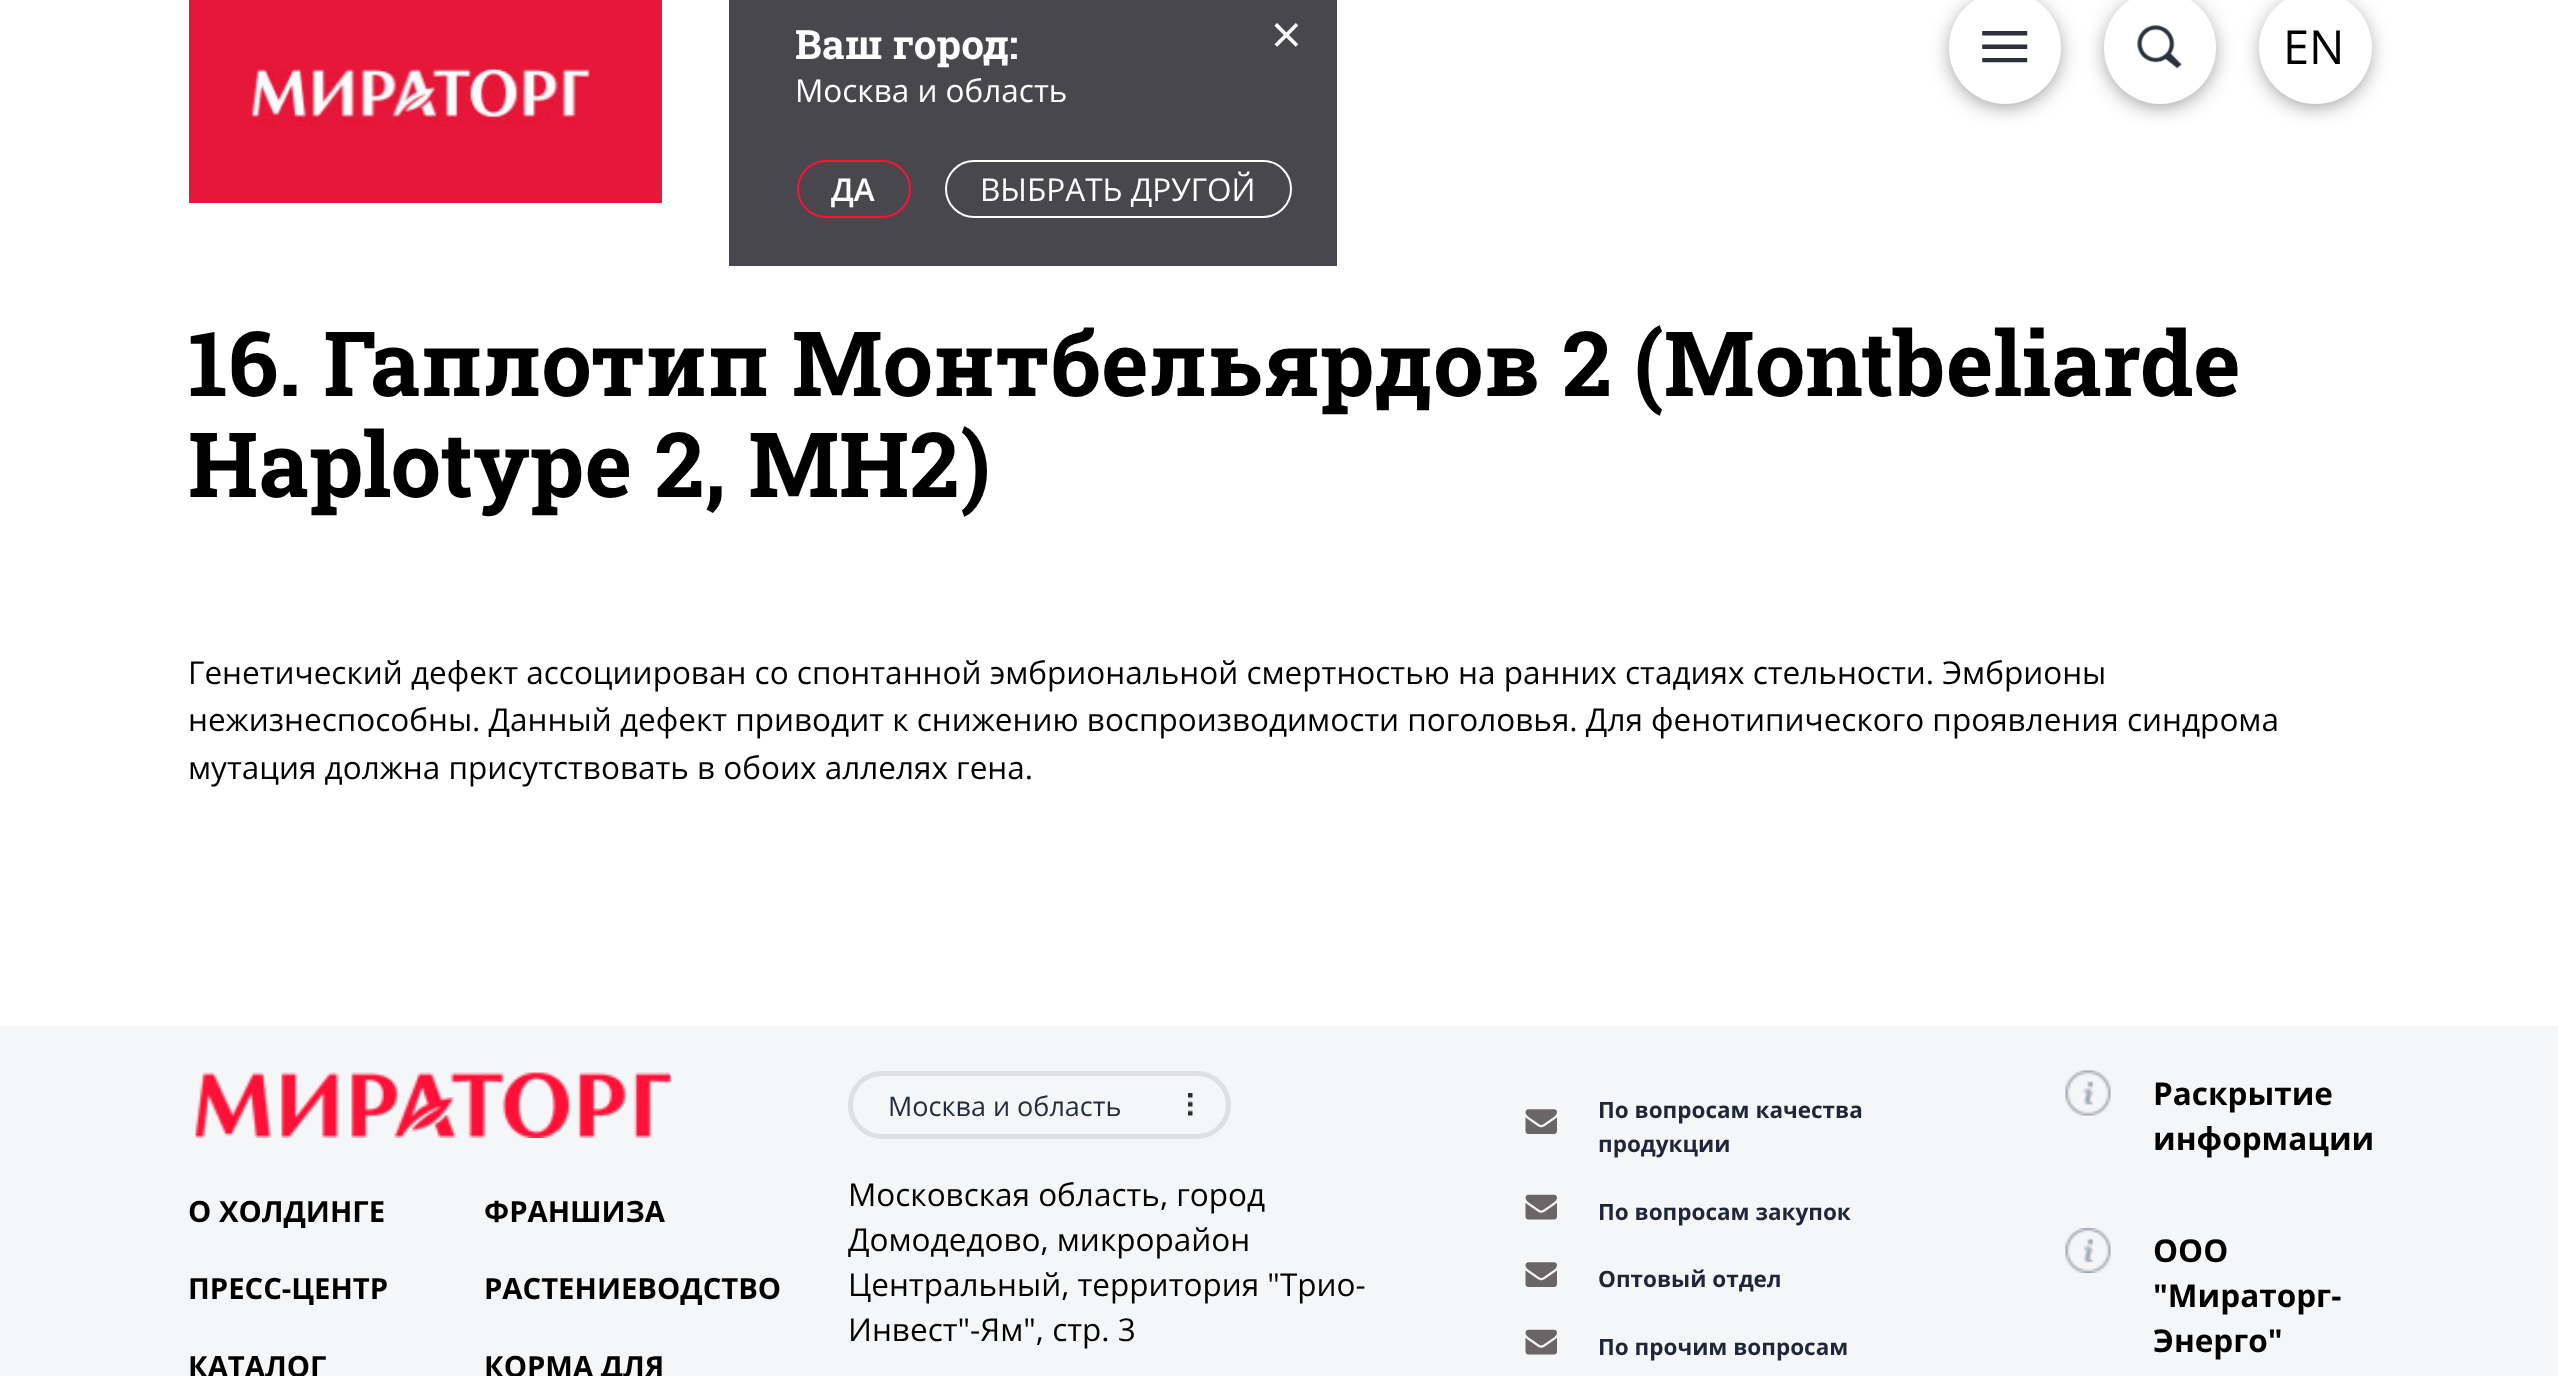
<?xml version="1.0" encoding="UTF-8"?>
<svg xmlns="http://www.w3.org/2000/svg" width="2558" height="1376">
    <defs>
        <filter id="blur1" x="-50%" y="-200%" width="200%" height="500%"><feGaussianBlur stdDeviation="11"/></filter>
    </defs>
    <rect width="100%" height="100%" fill="#FFFFFF"/>
    <rect x="189" y="0" width="473" height="203" fill="#E61739"/>
    <image x="251" y="69" width="340" height="57" href="img_01.png"/>
    <rect x="729" y="0" width="608" height="266" fill="#47474D"/>
    <text x="795" y="59" font-family="Roboto Slab" font-size="40.5" font-weight="700" fill="#FFFFFF">Ваш город:</text>
    <text x="1271" y="54" font-family="Open Sans" font-size="54" fill="#FFFFFF">×</text>
    <text x="795" y="102" font-family="Open Sans" font-size="31.5" fill="#FFFFFF">Москва и область</text>
    <rect x="798" y="161" width="112" height="56" rx="28" fill="none" stroke="#FF1037" stroke-width="2"/>
    <text x="831" y="201" font-family="Open Sans" font-size="31.5" font-weight="600" fill="#FFFFFF">ДА</text>
    <rect x="946" y="161" width="345" height="56" rx="28" fill="none" stroke="#FFFFFF" stroke-width="2"/>
    <text x="980" y="201" font-family="Open Sans" font-size="31.5" fill="#FFFFFF">ВЫБРАТЬ ДРУГОЙ</text>
    <rect x="1953" y="0" width="104" height="104" rx="52" fill="#000000" fill-opacity="0.5" filter="url(#blur1)"/>
    <rect x="1949" y="-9" width="112" height="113" rx="56" fill="#FFFFFF"/>
    <image x="1982" y="31" width="46" height="32" href="img_02.png"/>
    <rect x="2108" y="0" width="104" height="104" rx="52" fill="#000000" fill-opacity="0.5" filter="url(#blur1)"/>
    <rect x="2104" y="-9" width="112" height="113" rx="56" fill="#FFFFFF"/>
    <image x="2137" y="25" width="45" height="44" href="img_03.png"/>
    <rect x="2264" y="0" width="103" height="104" rx="51.5" fill="#000000" fill-opacity="0.5" filter="url(#blur1)"/>
    <circle cx="2315.5" cy="47.5" r="56.5" fill="#FFFFFF"/>
    <text x="2283" y="64" font-family="Open Sans" font-size="47" fill="#000000">EN</text>
    <text font-family="Roboto Slab" font-size="90" font-weight="700" fill="#000000">
        <tspan x="188" y="396">16. Гаплотип Монтбельярдов 2 (Montbeliarde</tspan>
        <tspan x="188" y="497">Haplotype 2, МH2)</tspan>
    </text>
    <text font-family="Open Sans" font-size="31.5" fill="#000000">
        <tspan x="188" y="684">Генетический дефект ассоциирован со спонтанной эмбриональной смертностью на ранних стадиях стельности. Эмбрионы</tspan>
        <tspan x="188" y="731">нежизнеспособны. Данный дефект приводит к снижению воспроизводимости поголовья. Для фенотипического проявления синдрома</tspan>
        <tspan x="188" y="779">мутация должна присутствовать в обоих аллелях гена.</tspan>
    </text>
    <rect x="0" y="1026" width="2558" height="350" fill="#F5F6F7"/>
    <image x="195" y="1072" width="476" height="66" href="img_04.png"/>
    <text x="188" y="1222" font-family="Open Sans" font-size="29.25" font-weight="700" fill="#000000">О ХОЛДИНГЕ</text>
    <text x="188" y="1299" font-family="Open Sans" font-size="29.25" font-weight="700" fill="#000000">ПРЕСС-ЦЕНТР</text>
    <text x="188" y="1377" font-family="Open Sans" font-size="29.25" font-weight="700" fill="#000000">КАТАЛОГ</text>
    <text x="484" y="1222" font-family="Open Sans" font-size="29.25" font-weight="700" fill="#000000">ФРАНШИЗА</text>
    <text x="484" y="1299" font-family="Open Sans" font-size="29.25" font-weight="700" fill="#000000">РАСТЕНИЕВОДСТВО</text>
    <text x="484" y="1377" font-family="Open Sans" font-size="29.25" font-weight="700" fill="#000000">КОРМА ДЛЯ</text>
    <rect x="850.5" y="1073.5" width="378" height="63" rx="31.5" fill="none" stroke="#DCE1E6" stroke-width="5"/>
    <text x="888" y="1116" font-family="Open Sans" font-size="27" fill="#242D3C">Москва и область</text>
    <image x="1188" y="1093" width="5" height="23" href="img_05.png"/>
    <text font-family="Open Sans" font-size="31.5" fill="#000000">
        <tspan x="848" y="1206">Московская область, город</tspan>
        <tspan x="848" y="1251">Домодедово, микрорайон</tspan>
        <tspan x="848" y="1296">Центральный, территория "Трио-</tspan>
        <tspan x="848" y="1341">Инвест"-Ям", стр. 3</tspan>
    </text>
    <image x="1525" y="1109" width="32" height="25" href="img_06.png"/>
    <text font-family="Open Sans" font-size="22.5" font-weight="700" fill="#1E2638">
        <tspan x="1598" y="1118">По вопросам качества</tspan>
        <tspan x="1598" y="1152">продукции</tspan>
    </text>
    <image x="1525" y="1194" width="32" height="26" href="img_07.png"/>
    <text x="1598" y="1220" font-family="Open Sans" font-size="22.5" font-weight="700" fill="#1E2638">По вопросам закупок</text>
    <image x="1525" y="1262" width="32" height="25" href="img_06.png"/>
    <text x="1598" y="1287" font-family="Open Sans" font-size="22.5" font-weight="700" fill="#1E2638">Оптовый отдел</text>
    <image x="1525" y="1329" width="32" height="26" href="img_07.png"/>
    <text x="1598" y="1355" font-family="Open Sans" font-size="22.5" font-weight="700" fill="#1E2638">По прочим вопросам</text>
    <image x="2065" y="1070" width="46" height="46" href="img_08.png"/>
    <text font-family="Open Sans" font-size="31.5" font-weight="700" fill="#000000">
        <tspan x="2153" y="1105">Раскрытие</tspan>
        <tspan x="2153" y="1150">информации</tspan>
    </text>
    <image x="2065" y="1228" width="46" height="45" href="img_09.png"/>
    <text font-family="Open Sans" font-size="31.5" font-weight="700" fill="#000000">
        <tspan x="2153" y="1262">ООО</tspan>
        <tspan x="2153" y="1307">"Мираторг-</tspan>
        <tspan x="2153" y="1352">Энерго"</tspan>
    </text>
</svg>
